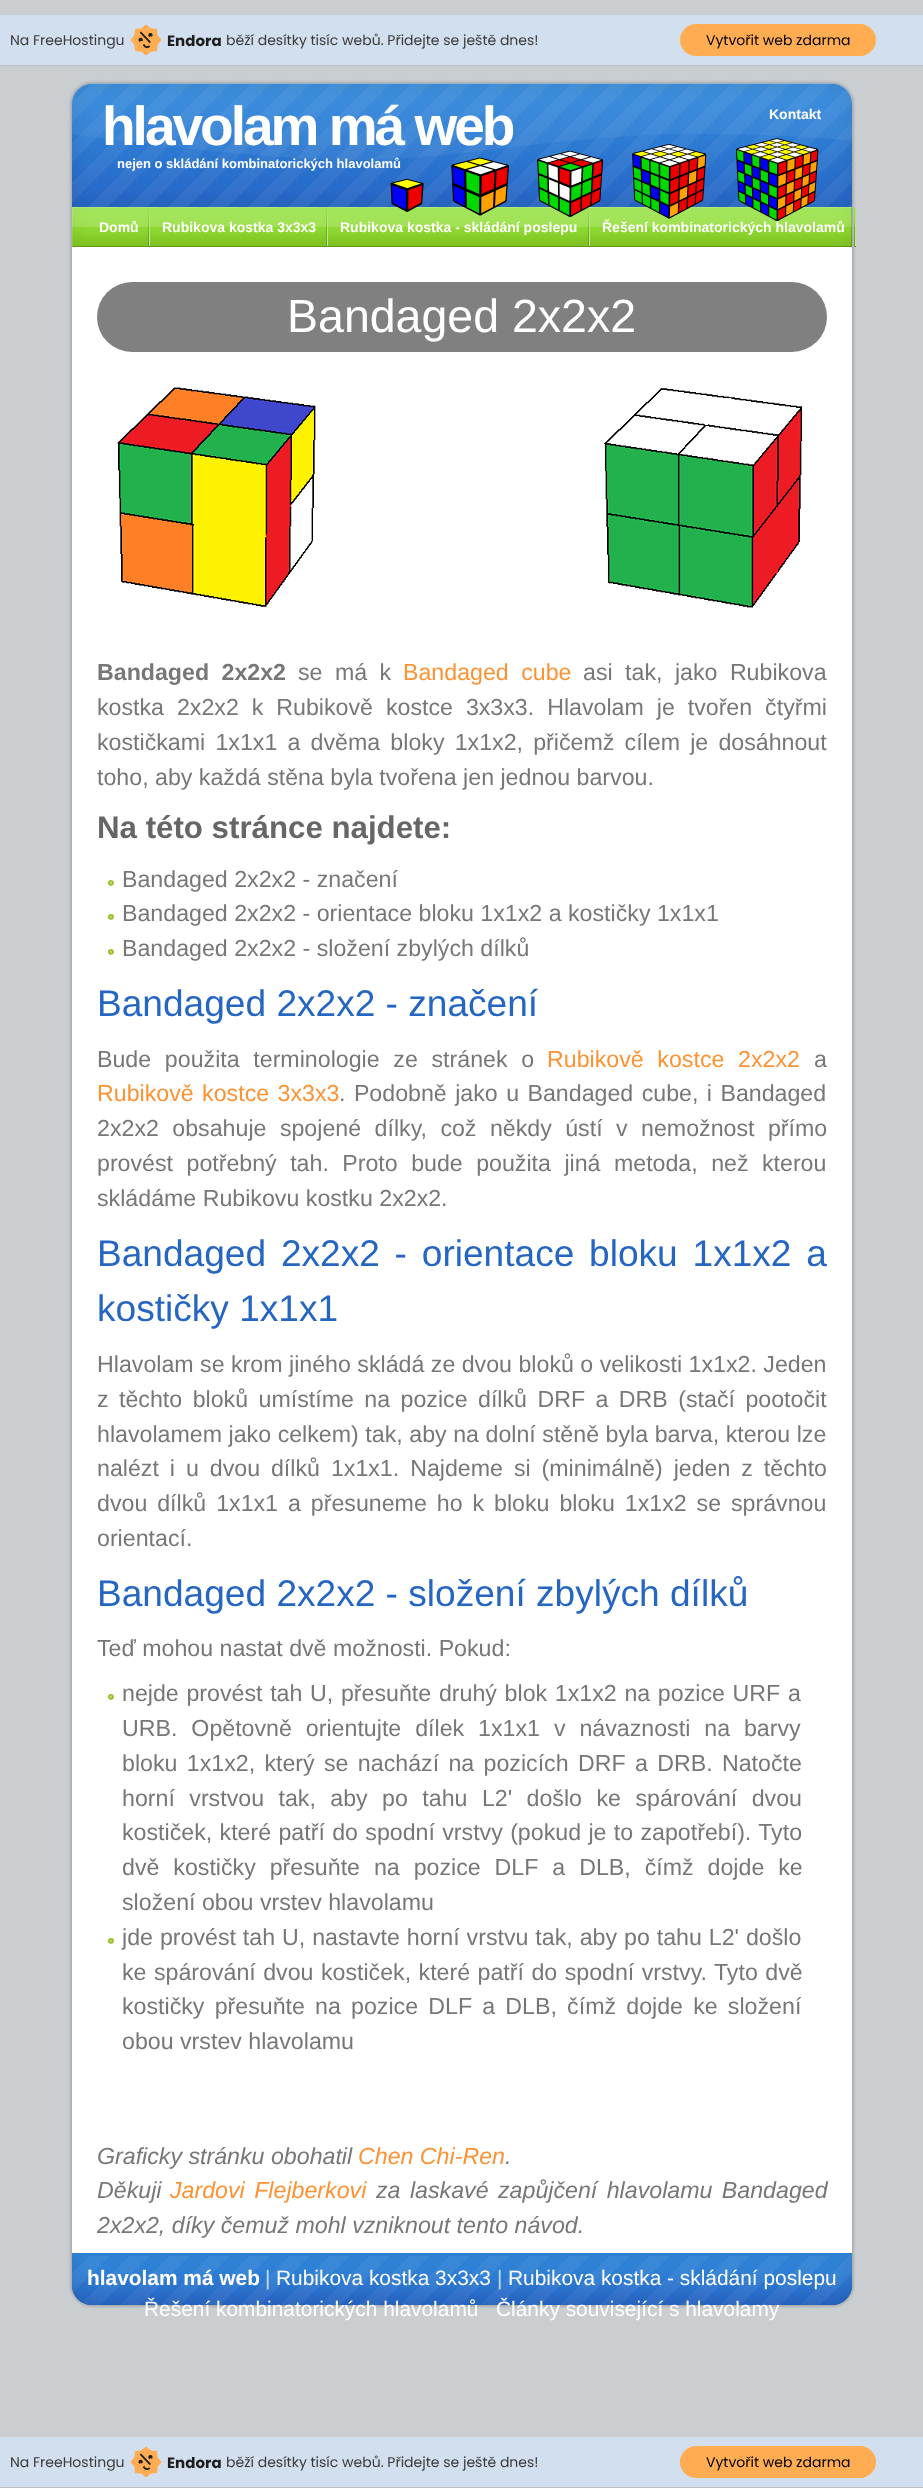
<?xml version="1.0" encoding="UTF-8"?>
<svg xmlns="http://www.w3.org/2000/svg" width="923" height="2488">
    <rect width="100%" height="100%" fill="#CACED1"/>
    <rect x="0" y="15" width="923" height="50" fill="#D2DFEF"/>
    <rect x="0" y="65" width="923" height="1" fill="#BEBFC4"/>
    <text x="10" y="45" font-family="Poppins" font-size="14" fill="#3A3A3A">Na FreeHostingu</text>
    <image x="130" y="24" width="32" height="32" href="img_01.png"/>
    <text x="167" y="46" font-family="Poppins" font-size="15" font-weight="700" fill="#1E1E1E">Endora</text>
    <text x="226" y="45" font-family="Poppins" font-size="14" fill="#3A3A3A">běží desítky tisíc webů. Přidejte se ještě dnes!</text>
    <rect x="680" y="24" width="196" height="32" rx="16" fill="#FFAC52"/>
    <text x="706" y="45" font-family="Poppins" font-size="14" fill="#000000">Vytvořit web zdarma</text>
    <image x="67" y="247" width="790" height="2006" href="img_02.png"/>
    <image x="67" y="79" width="790" height="128" href="img_03.png"/>
    <text x="102" y="145" font-family="Liberation Sans" font-size="55" font-weight="700" letter-spacing="-3" fill="#FFFFFF">hlavolam má web</text>
    <text x="769" y="119" font-family="Liberation Sans" font-size="14" font-weight="700" fill="#FFFFFF">Kontakt</text>
    <text x="117" y="168" font-family="Liberation Sans" font-size="13" font-weight="700" fill="#FFFFFF">nejen o skládání kombinatorických hlavolamů</text>
    <image x="67" y="207" width="790" height="40" href="img_09.png"/>
    <image x="390" y="178" width="34" height="34" href="img_04.png"/>
    <image x="451" y="157" width="58" height="59" href="img_05.png"/>
    <image x="588" y="208" width="2" height="39" href="img_10.png"/>
    <image x="537" y="150" width="67" height="67" href="img_06.png"/>
    <image x="632" y="144" width="75" height="75" href="img_07.png"/>
    <text x="602" y="232" font-family="Liberation Sans" font-size="14" font-weight="700" fill="#FFFFFF">Řešení kombinatorických hlavolamů</text>
    <image x="736" y="138" width="83" height="83" href="img_08.png"/>
    <image x="148" y="208" width="2" height="39" href="img_10.png"/>
    <text x="99" y="232" font-family="Liberation Sans" font-size="14" font-weight="700" fill="#FFFFFF">Domů</text>
    <image x="326" y="208" width="2" height="39" href="img_10.png"/>
    <text x="162" y="232" font-family="Liberation Sans" font-size="14" font-weight="700" fill="#FFFFFF">Rubikova kostka 3x3x3</text>
    <text x="340" y="232" font-family="Liberation Sans" font-size="14" font-weight="700" fill="#FFFFFF">Rubikova kostka - skládání poslepu</text>
    <image x="854" y="208" width="2" height="39" href="img_10.png"/>
    <rect x="97" y="282" width="730" height="70" rx="35" fill="#808080"/>
    <text x="287" y="332" font-family="Liberation Sans" font-size="46.5" fill="#FFFFFF">Bandaged 2x2x2</text>
    <image x="117" y="387" width="199" height="220" href="img_11.png"/>
    <image x="604" y="388" width="199" height="220" href="img_12.png"/>
    <text x="97" y="680" word-spacing="6" font-family="Liberation Sans" font-size="23.2" font-weight="700" fill="#777777">Bandaged 2x2x2</text>
    <text x="298" y="680" word-spacing="6" font-family="Liberation Sans" font-size="23.2" fill="#777777">se má k</text>
    <text x="403" y="680" word-spacing="6" font-family="Liberation Sans" font-size="23.2" fill="#FB9233">Bandaged cube</text>
    <text x="583" y="680" word-spacing="6" font-family="Liberation Sans" font-size="23.2" fill="#777777">asi tak, jako Rubikova</text>
    <text font-family="Liberation Sans" font-size="23.2" fill="#777777">
        <tspan x="97" y="715" word-spacing="6.5">kostka 2x2x2 k Rubikově kostce 3x3x3. Hlavolam je tvořen čtyřmi</tspan>
        <tspan x="97" y="750" word-spacing="3.75">kostičkami 1x1x1 a dvěma bloky 1x1x2, přičemž cílem je dosáhnout</tspan>
        <tspan x="97" y="785">toho, aby každá stěna byla tvořena jen jednou barvou.</tspan>
    </text>
    <text x="97" y="838" font-family="Liberation Sans" font-size="31.25" font-weight="700" fill="#666666">Na této stránce najdete:</text>
    <image x="107" y="879" width="8" height="7" href="img_13.png"/>
    <text x="122" y="887" font-family="Liberation Sans" font-size="23.2" fill="#777777">Bandaged 2x2x2 - značení</text>
    <image x="107" y="913" width="8" height="7" href="img_13.png"/>
    <text x="122" y="921" font-family="Liberation Sans" font-size="23.2" fill="#777777">Bandaged 2x2x2 - orientace bloku 1x1x2 a kostičky 1x1x1</text>
    <image x="107" y="948" width="8" height="7" href="img_13.png"/>
    <text x="122" y="956" font-family="Liberation Sans" font-size="23.2" fill="#777777">Bandaged 2x2x2 - složení zbylých dílků</text>
    <text x="97" y="1016" font-family="Liberation Sans" font-size="37.1" fill="#2666C3">Bandaged 2x2x2 - značení</text>
    <text x="97" y="1067" word-spacing="7.25" font-family="Liberation Sans" font-size="23.2" fill="#777777">Bude použita terminologie ze stránek o</text>
    <text x="547" y="1067" word-spacing="7.25" font-family="Liberation Sans" font-size="23.2" fill="#FB9233">Rubikově kostce 2x2x2</text>
    <text x="814" y="1067" font-family="Liberation Sans" font-size="23.2" fill="#777777">a</text>
    <text x="97" y="1101" word-spacing="2" font-family="Liberation Sans" font-size="23.2" fill="#FB9233">Rubikově kostce 3x3x3</text>
    <text x="339" y="1101" word-spacing="2" font-family="Liberation Sans" font-size="23.2" fill="#777777">. Podobně jako u Bandaged cube, i Bandaged</text>
    <text font-family="Liberation Sans" font-size="23.2" fill="#777777">
        <tspan x="97" y="1136" word-spacing="7">2x2x2 obsahuje spojené dílky, což někdy ústí v nemožnost přímo</tspan>
        <tspan x="97" y="1171" word-spacing="7">provést potřebný tah. Proto bude použita jiná metoda, než kterou</tspan>
        <tspan x="97" y="1206">skládáme Rubikovu kostku 2x2x2.</tspan>
    </text>
    <text font-family="Liberation Sans" font-size="37.1" fill="#2666C3">
        <tspan x="97" y="1266" word-spacing="4.5">Bandaged 2x2x2 - orientace bloku 1x1x2 a</tspan>
        <tspan x="97" y="1321">kostičky 1x1x1</tspan>
    </text>
    <text font-family="Liberation Sans" font-size="23.2" fill="#777777">
        <tspan x="97" y="1372">Hlavolam se krom jiného skládá ze dvou bloků o velikosti 1x1x2. Jeden</tspan>
        <tspan x="97" y="1407" word-spacing="4">z těchto bloků umístíme na pozice dílků DRF a DRB (stačí pootočit</tspan>
        <tspan x="97" y="1442" word-spacing="0.1">hlavolamem jako celkem) tak, aby na dolní stěně byla barva, kterou lze</tspan>
        <tspan x="97" y="1476" word-spacing="4.5">nalézt i u dvou dílků 1x1x1. Najdeme si (minimálně) jeden z těchto</tspan>
        <tspan x="97" y="1511" word-spacing="3.5">dvou dílků 1x1x1 a přesuneme ho k bloku bloku 1x1x2 se správnou</tspan>
        <tspan x="97" y="1546">orientací.</tspan>
    </text>
    <text x="97" y="1606" font-family="Liberation Sans" font-size="37.1" fill="#2666C3">Bandaged 2x2x2 - složení zbylých dílků</text>
    <text x="97" y="1656" font-family="Liberation Sans" font-size="23.2" fill="#777777">Teď mohou nastat dvě možnosti. Pokud:</text>
    <image x="107" y="1693" width="8" height="7" href="img_13.png"/>
    <text font-family="Liberation Sans" font-size="23.2" fill="#777777">
        <tspan x="122" y="1701" word-spacing="1.25">nejde provést tah U, přesuňte druhý blok 1x1x2 na pozice URF a</tspan>
        <tspan x="122" y="1736" word-spacing="7.5">URB. Opětovně orientujte dílek 1x1x1 v návaznosti na barvy</tspan>
        <tspan x="122" y="1771" word-spacing="2.9">bloku 1x1x2, který se nachází na pozicích DRF a DRB. Natočte</tspan>
        <tspan x="122" y="1806" word-spacing="8">horní vrstvou tak, aby po tahu L2' došlo ke spárování dvou</tspan>
        <tspan x="122" y="1840" word-spacing="0.9">kostiček, které patří do spodní vrstvy (pokud je to zapotřebí). Tyto</tspan>
        <tspan x="122" y="1875" word-spacing="7.5">dvě kostičky přesuňte na pozice DLF a DLB, čímž dojde ke</tspan>
        <tspan x="122" y="1910">složení obou vrstev hlavolamu</tspan>
    </text>
    <image x="107" y="1937" width="8" height="7" href="img_13.png"/>
    <text font-family="Liberation Sans" font-size="23.2" fill="#777777">
        <tspan x="122" y="1945" word-spacing="0.5">jde provést tah U, nastavte horní vrstvu tak, aby po tahu L2' došlo</tspan>
        <tspan x="122" y="1980" word-spacing="1">ke spárování dvou kostiček, které patří do spodní vrstvy. Tyto dvě</tspan>
        <tspan x="122" y="2014" word-spacing="3.75">kostičky přesuňte na pozice DLF a DLB, čímž dojde ke složení</tspan>
        <tspan x="122" y="2049">obou vrstev hlavolamu</tspan>
    </text>
    <text x="97" y="2164" font-family="Liberation Sans" font-size="23.2" font-style="italic" fill="#777777">Graficky stránku obohatil</text>
    <text x="358" y="2164" font-family="Liberation Sans" font-size="23.2" font-style="italic" fill="#FB9233">Chen Chi-Ren</text>
    <text x="505" y="2164" font-family="Liberation Sans" font-size="23.2" font-style="italic" fill="#777777">.</text>
    <text x="97" y="2198" font-family="Liberation Sans" font-size="23.2" font-style="italic" fill="#777777">Děkuji</text>
    <text x="170" y="2198" word-spacing="3" font-family="Liberation Sans" font-size="23.2" font-style="italic" fill="#FB9233">Jardovi Flejberkovi</text>
    <text x="376" y="2198" word-spacing="3" font-family="Liberation Sans" font-size="23.2" font-style="italic" fill="#777777">za laskavé zapůjčení hlavolamu Bandaged</text>
    <text x="97" y="2233" font-family="Liberation Sans" font-size="23.2" font-style="italic" fill="#777777">2x2x2, díky čemuž mohl vzniknout tento návod.</text>
    <image x="67" y="2253" width="790" height="56" href="img_14.png"/>
    <text x="87" y="2285" font-family="Liberation Sans" font-size="20.9" font-weight="700" fill="#FFFFFF">hlavolam má web</text>
    <text x="265" y="2285" font-family="Liberation Sans" font-size="20.9" fill="#C6DDEE">|</text>
    <text x="276" y="2285" font-family="Liberation Sans" font-size="20.9" fill="#FFFFFF">Rubikova kostka 3x3x3</text>
    <text x="497" y="2285" font-family="Liberation Sans" font-size="20.9" fill="#C6DDEE">|</text>
    <text x="508" y="2285" font-family="Liberation Sans" font-size="20.9" fill="#FFFFFF">Rubikova kostka - skládání poslepu</text>
    <text x="144" y="2316" font-family="Liberation Sans" font-size="20.9" fill="#FFFFFF">Řešení kombinatorických hlavolamů</text>
    <text x="496" y="2316" font-family="Liberation Sans" font-size="20.9" fill="#FFFFFF">Články související s hlavolamy</text>
    <rect x="0" y="2437" width="923" height="50" fill="#D2DFEF"/>
    <rect x="0" y="2487" width="923" height="1" fill="#BEBFC4"/>
    <text x="10" y="2467" font-family="Poppins" font-size="14" fill="#3A3A3A">Na FreeHostingu</text>
    <image x="130" y="2446" width="32" height="32" href="img_01.png"/>
    <text x="167" y="2468" font-family="Poppins" font-size="15" font-weight="700" fill="#1E1E1E">Endora</text>
    <text x="226" y="2467" font-family="Poppins" font-size="14" fill="#3A3A3A">běží desítky tisíc webů. Přidejte se ještě dnes!</text>
    <rect x="680" y="2446" width="196" height="32" rx="16" fill="#FFAC52"/>
    <text x="706" y="2467" font-family="Poppins" font-size="14" fill="#000000">Vytvořit web zdarma</text>
</svg>
